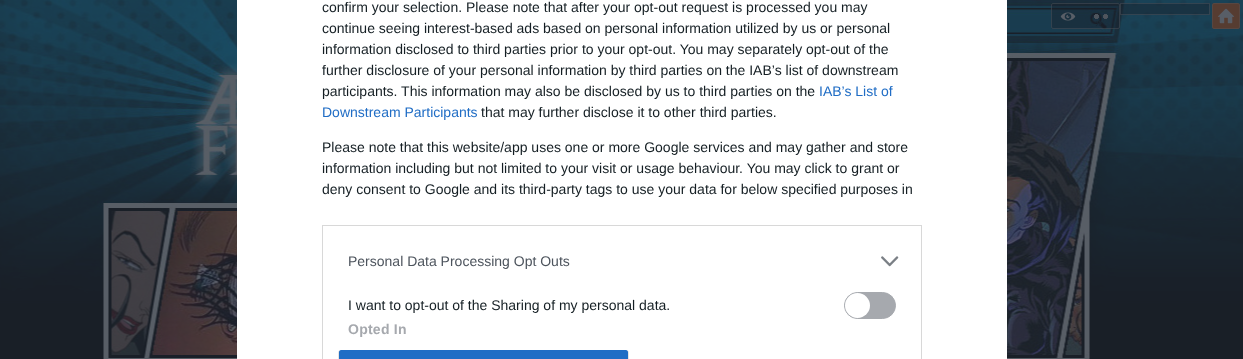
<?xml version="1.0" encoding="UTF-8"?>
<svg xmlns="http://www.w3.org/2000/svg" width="1243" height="359">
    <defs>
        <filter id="blur1" x="-50%" y="-200%" width="200%" height="500%"><feGaussianBlur stdDeviation="0.5"/></filter>
    </defs>
    <rect width="100%" height="100%" fill="#FFFFFF"/>
    <image x="0" y="0" width="1243" height="359" href="img_01.png"/>
    <rect x="237" y="0" width="770" height="359" fill="#FFFFFF"/>
    <text font-family="Liberation Sans" font-size="14" fill="#141E23">
        <tspan x="322" y="12">confirm your selection. Please note that after your opt-out request is processed you may</tspan>
        <tspan x="322" y="33">continue seeing interest-based ads based on personal information utilized by us or personal</tspan>
        <tspan x="322" y="54">information disclosed to third parties prior to your opt-out. You may separately opt-out of the</tspan>
        <tspan x="322" y="75">further disclosure of your personal information by third parties on the IAB’s list of downstream</tspan>
        <tspan x="322" y="96">participants. This information may also be disclosed by us to third parties on the</tspan>
    </text>
    <text x="819" y="96" font-family="Liberation Sans" font-size="14" fill="#206DC5">IAB’s List of</text>
    <text x="322" y="117" font-family="Liberation Sans" font-size="14" fill="#206DC5">Downstream Participants</text>
    <text x="481" y="117" font-family="Liberation Sans" font-size="14" fill="#141E23">that may further disclose it to other third parties.</text>
    <text font-family="Liberation Sans" font-size="14" fill="#141E23">
        <tspan x="322" y="152">Please note that this website/app uses one or more Google services and may gather and store</tspan>
        <tspan x="322" y="173">information including but not limited to your visit or usage behaviour. You may click to grant or</tspan>
        <tspan x="322" y="194">deny consent to Google and its third-party tags to use your data for below specified purposes in</tspan>
    </text>
    <rect x="322.5" y="225.5" width="599" height="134" fill="none" stroke="#D8D8D8"/>
    <text x="348" y="266" font-family="Liberation Sans" font-size="14" fill="#4D545D">Personal Data Processing Opt Outs</text>
    <image x="881" y="256" width="18" height="11" href="img_02.png"/>
    <text x="348" y="310" font-family="Liberation Sans" font-size="14" fill="#141E23">I want to opt-out of the Sharing of my personal data.</text>
    <rect x="844.5" y="292.5" width="51" height="26" rx="13" fill="#A6A9AE" stroke="#A6A9AE"/>
    <circle cx="857.5" cy="305.5" r="12.5" fill="#FFFFFF"/>
    <text x="348" y="334" font-family="Liberation Sans" font-size="14" font-weight="700" letter-spacing="0.25" fill="#A6A9AE">Opted In</text>
    <rect x="338" y="350" width="291" height="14" rx="3" fill="#000000" fill-opacity="0.1" filter="url(#blur1)"/>
    <path d="M 341 350 H 626 C 627 350 628 351 628 352 V 359 H 339 V 352 C 339 351 340 350 341 350 Z" fill="#206DC5"/>
    <text x="1095" y="27" font-family="Liberation Sans" font-size="13" fill="#1B303E">»</text>
    <rect x="1051" y="3" width="69" height="26" rx="2" fill="#191F27" fill-opacity="0.4"/>
    <rect x="1051.5" y="3.5" width="68" height="25" rx="1.5" fill="none" stroke="#595F67" stroke-opacity="0.4"/>
    <image x="1060" y="12" width="16" height="9" href="img_03.png"/>
    <image x="1094" y="14" width="14" height="5" href="img_04.png"/>
    <rect x="1120" y="3" width="90" height="12" fill="#191F27" fill-opacity="0.4"/>
    <rect x="1120.5" y="3.5" width="89" height="11" fill="none" stroke="#595F67" stroke-opacity="0.4"/>
    <rect x="1212" y="3" width="28" height="26" rx="2" fill="#563C31"/>
    <rect x="1212.5" y="3.5" width="27" height="25" rx="1.5" fill="none" stroke="#595F67" stroke-opacity="0.3"/>
    <image x="1217" y="8" width="18" height="16" href="img_05.png"/>
</svg>
